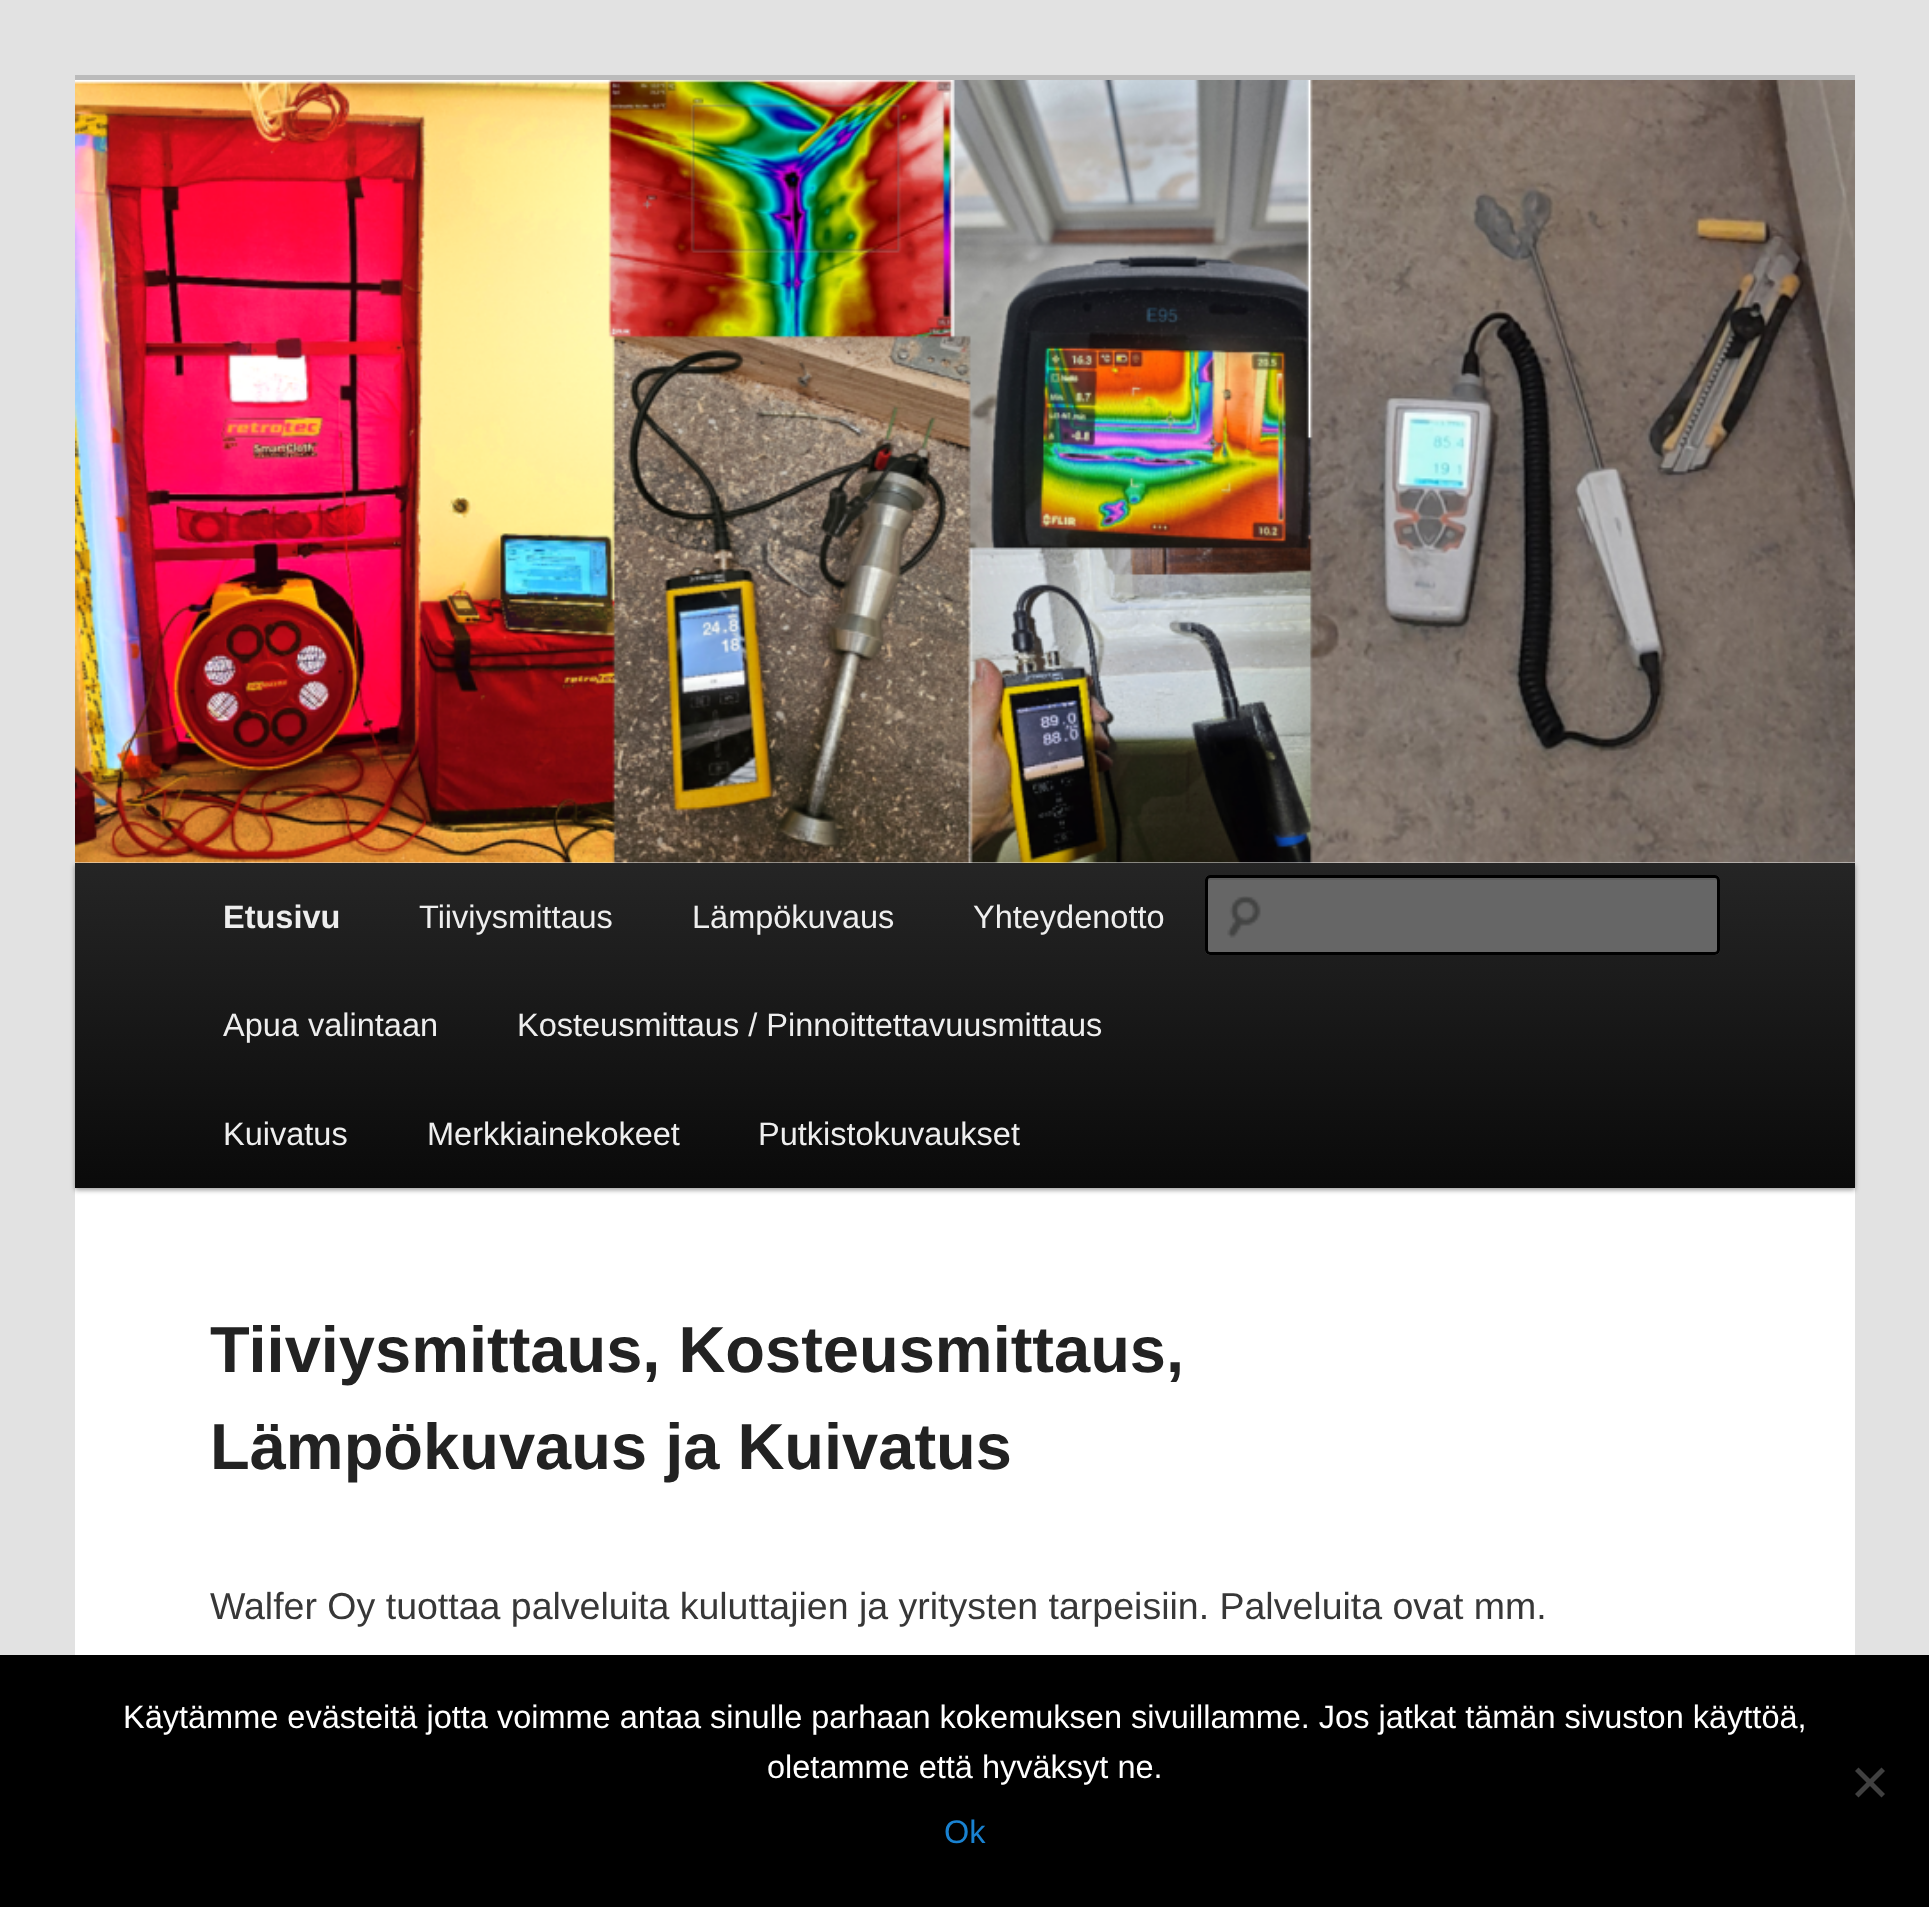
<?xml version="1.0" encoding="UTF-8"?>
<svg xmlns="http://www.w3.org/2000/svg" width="1929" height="1907">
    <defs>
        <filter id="blur1" x="-50%" y="-200%" width="200%" height="500%"><feGaussianBlur stdDeviation="2.5"/></filter>
        <linearGradient id="g1" gradientUnits="userSpaceOnUse" x1="965" y1="862" x2="965" y2="1188"><stop offset="0" stop-color="#252525"/><stop offset="1" stop-color="#0A0A0A"/></linearGradient>
    </defs>
    <rect width="100%" height="100%" fill="#E2E2E2"/>
    <rect x="75" y="80" width="1780" height="1575" fill="#FFFFFF"/>
    <rect x="75" y="75" width="1780" height="5" fill="#BBBBBB"/>
    <rect x="75" y="865" width="1780" height="325" fill="#000000" fill-opacity="0.4" filter="url(#blur1)"/>
    <image x="75" y="80" width="1780" height="783" href="img_01.png"/>
    <rect x="75" y="863" width="1780" height="325" fill="url(#g1)"/>
    <text x="223" y="928" font-family="Liberation Sans" font-size="32.5" font-weight="700" fill="#EEEEEE">Etusivu</text>
    <text x="419" y="928" font-family="Liberation Sans" font-size="32.5" fill="#EEEEEE">Tiiviysmittaus</text>
    <text x="692" y="928" font-family="Liberation Sans" font-size="32.5" fill="#EEEEEE">Lämpökuvaus</text>
    <text x="973" y="928" font-family="Liberation Sans" font-size="32.5" fill="#EEEEEE">Yhteydenotto</text>
    <text x="223" y="1036" font-family="Liberation Sans" font-size="32.5" fill="#EEEEEE">Apua valintaan</text>
    <text x="517" y="1036" font-family="Liberation Sans" font-size="32.5" fill="#EEEEEE">Kosteusmittaus / Pinnoittettavuusmittaus</text>
    <text x="223" y="1145" font-family="Liberation Sans" font-size="32.5" fill="#EEEEEE">Kuivatus</text>
    <text x="427" y="1145" font-family="Liberation Sans" font-size="32.5" fill="#EEEEEE">Merkkiainekokeet</text>
    <text x="758" y="1145" font-family="Liberation Sans" font-size="32.5" fill="#EEEEEE">Putkistokuvaukset</text>
    <rect x="1205" y="875" width="515" height="80" rx="5" fill="#666666"/>
    <image x="1227" y="896" width="34" height="42" href="img_02.png"/>
    <path d="M 1210 880 H 1715 C 1716 880 1718 881 1718 882 C 1718 880 1718 878 1716 878 H 1210 C 1208 878 1208 880 1208 882 C 1208 881 1209 880 1210 880 Z" fill="#5C5C5C"/>
    <rect x="1206.5" y="876.5" width="512" height="77" rx="3.5" fill="none" stroke="#000000" stroke-width="3"/>
    <text font-family="Liberation Sans" font-size="65" font-weight="700" fill="#222222">
        <tspan x="210" y="1372">Tiiviysmittaus, Kosteusmittaus,</tspan>
        <tspan x="210" y="1469">Lämpökuvaus ja Kuivatus</tspan>
    </text>
    <text x="210" y="1619" font-family="Liberation Sans" font-size="37.5" fill="#373737">Walfer Oy tuottaa palveluita kuluttajien ja yritysten tarpeisiin. Palveluita ovat mm.</text>
    <rect x="0" y="1655" width="1929" height="252" fill="#000000"/>
    <text x="123" y="1728" font-family="Liberation Sans" font-size="32.5" fill="#FFFFFF">Käytämme evästeitä jotta voimme antaa sinulle parhaan kokemuksen sivuillamme. Jos jatkat tämän sivuston käyttöä,</text>
    <text x="767" y="1778" font-family="Liberation Sans" font-size="32.5" fill="#FFFFFF">oletamme että hyväksyt ne.</text>
    <path d="M 1881.5 1767.5 L 1885 1771 L 1858.5 1797.5 L 1855 1794 Z" fill="#404040"/>
    <path d="M 1855 1771 L 1858.5 1767.5 L 1885 1794 L 1881.5 1797.5 Z" fill="#404040"/>
    <text x="944" y="1843" font-family="Liberation Sans" font-size="32.5" fill="#1982D1">Ok</text>
</svg>
